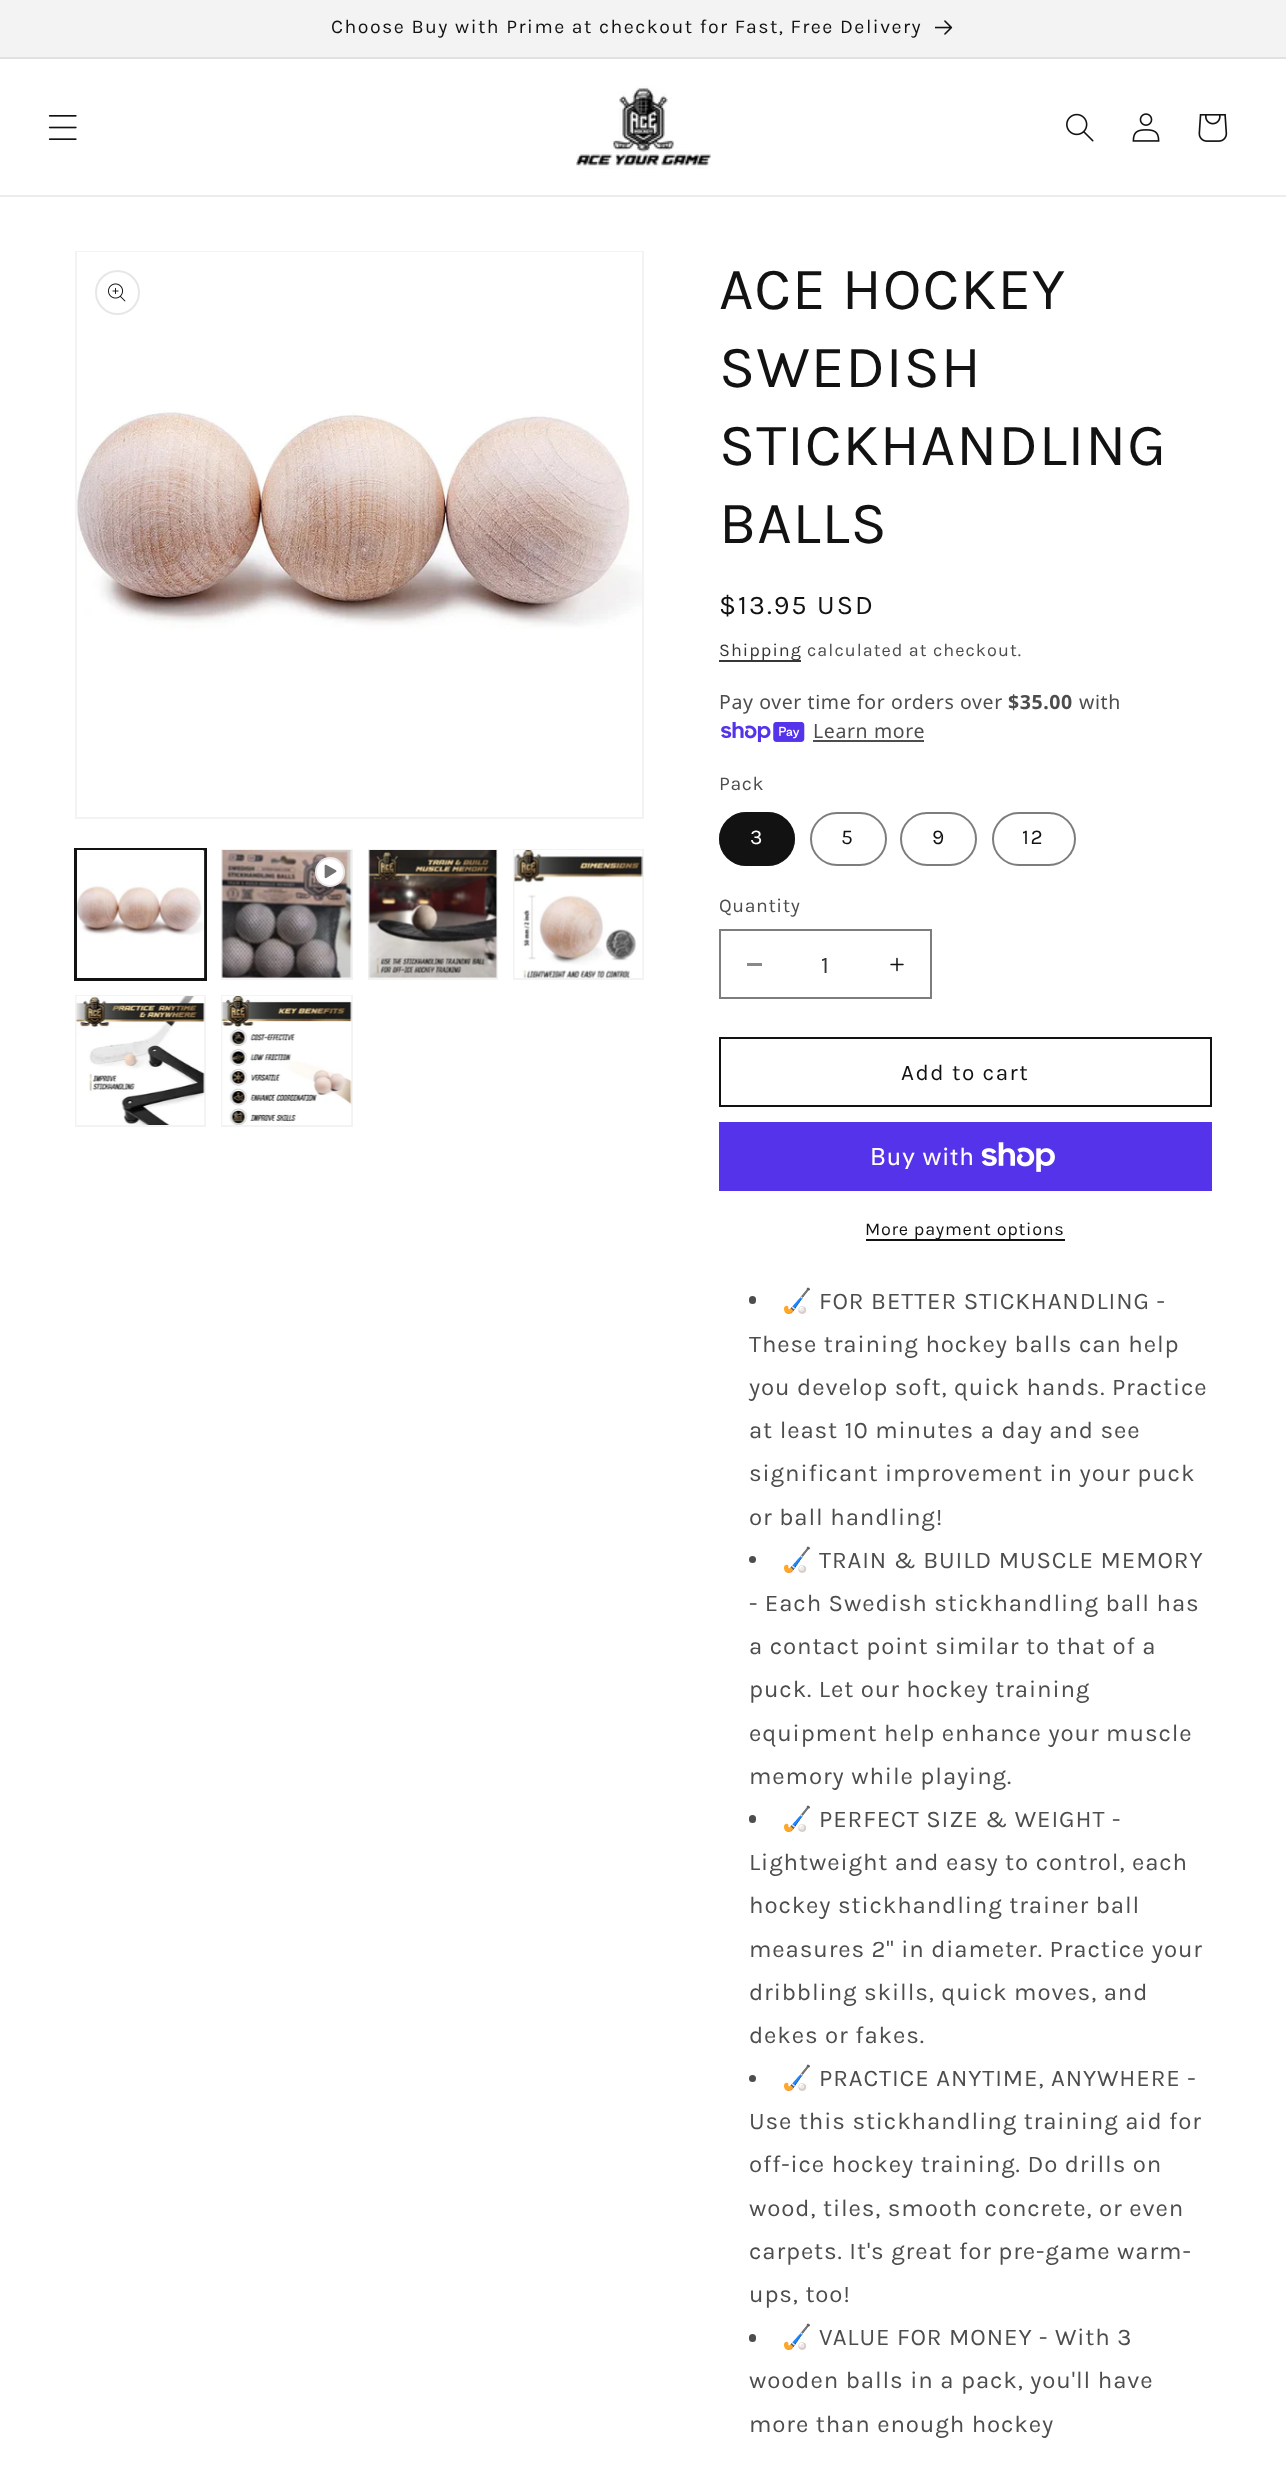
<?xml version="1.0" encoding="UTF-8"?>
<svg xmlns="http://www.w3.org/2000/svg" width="1286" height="2469">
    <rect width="100%" height="100%" fill="#FFFFFF"/>
    <rect x="0" y="0" width="1286" height="57" fill="#F3F3F3"/>
    <rect x="0" y="57" width="1286" height="2" fill="#E1E1E1"/>
    <text x="331" y="33" font-family="Karla" font-size="19.5" letter-spacing="1.5" fill="#121212">Choose Buy with Prime at checkout for Fast, Free Delivery</text>
    <image x="935" y="20" width="18" height="15" href="img_01.png"/>
    <rect x="0" y="195" width="1286" height="2" fill="#ECECEC"/>
    <image x="48" y="115" width="29" height="25" href="img_02.png"/>
    <image x="576" y="86" width="135" height="83" href="img_03.png"/>
    <image x="1066" y="113" width="28" height="29" href="img_04.png"/>
    <image x="1132" y="113" width="28" height="29" href="img_05.png"/>
    <image x="1198" y="114" width="30" height="28" href="img_06.png"/>
    <rect x="76" y="252" width="567" height="566" fill="none" stroke="#F3F3F3" stroke-width="2"/>
    <image x="77" y="252" width="565" height="377" href="img_07.png"/>
    <circle cx="117.5" cy="292.5" r="21.5" fill="none" stroke="#E7E7E7" stroke-width="2"/>
    <image x="108" y="283" width="18" height="19" href="img_08.png"/>
    <rect x="75" y="849" width="131" height="131" fill="none" stroke="#121212" stroke-width="2"/>
    <rect x="76" y="850" width="129" height="129" fill="none" stroke="#121212" stroke-width="2"/>
    <image x="77" y="850" width="128" height="128" href="img_09.png"/>
    <rect x="222" y="850" width="130" height="129" fill="none" stroke="#F3F3F3" stroke-width="2"/>
    <image x="221" y="850" width="131" height="128" href="img_10.png"/>
    <circle cx="330" cy="872" r="15" fill="#FFFFFF"/>
    <circle cx="330" cy="872" r="14" fill="none" stroke="#121212" stroke-opacity="0.1" stroke-width="2"/>
    <image x="324" y="864" width="13" height="15" href="img_11.png"/>
    <rect x="369" y="850" width="128" height="129" fill="none" stroke="#F3F3F3" stroke-width="2"/>
    <image x="368" y="850" width="129" height="128" href="img_12.png"/>
    <rect x="514" y="850" width="129" height="129" fill="none" stroke="#F3F3F3" stroke-width="2"/>
    <image x="514" y="850" width="129" height="128" href="img_13.png"/>
    <rect x="76" y="996" width="129" height="130" fill="none" stroke="#F3F3F3" stroke-width="2"/>
    <image x="76" y="996" width="129" height="129" href="img_14.png"/>
    <rect x="222" y="996" width="130" height="130" fill="none" stroke="#F3F3F3" stroke-width="2"/>
    <image x="221" y="996" width="131" height="129" href="img_15.png"/>
    <text font-family="Karla" font-size="60" letter-spacing="0.9" fill="#121212">
        <tspan x="719" y="309">ACE HOCKEY</tspan>
        <tspan x="719" y="387">SWEDISH</tspan>
        <tspan x="719" y="465">STICKHANDLING</tspan>
        <tspan x="719" y="543">BALLS</tspan>
    </text>
    <text x="719" y="614" font-family="Karla" font-size="27" letter-spacing="2" fill="#121212">$13.95 USD</text>
    <rect x="719" y="660" width="82" height="2" fill="#363636"/>
    <text x="719" y="656" font-family="Karla" font-size="18" letter-spacing="1.05" fill="#353535">Shipping</text>
    <text x="807" y="656" font-family="Karla" font-size="18" letter-spacing="1.05" fill="#4D4D4D">calculated at checkout.</text>
    <text x="719" y="709" font-family="Noto Sans" font-size="19.5" letter-spacing="0.6" fill="#4D4D4D">Pay over time for orders over</text>
    <text x="1008" y="709" font-family="Noto Sans" font-size="19.5" font-weight="700" letter-spacing="0.6" fill="#4D4D4D">$35.00</text>
    <text x="1079" y="709" font-family="Noto Sans" font-size="19.5" letter-spacing="0.6" fill="#4D4D4D">with</text>
    <image x="721" y="722" width="84" height="21" href="img_16.png"/>
    <text x="813" y="738" font-family="Noto Sans" font-size="19.5" letter-spacing="0.6" fill="#4D4D4D">Learn more</text>
    <rect x="813" y="740" width="111" height="2" fill="#4D4D4D"/>
    <text x="719" y="790" font-family="Karla" font-size="19.5" letter-spacing="0.6" fill="#4D4D4D">Pack</text>
    <rect x="719" y="812" width="76" height="54" rx="27" fill="#121212"/>
    <rect x="720" y="813" width="74" height="52" rx="26" fill="none" stroke="#121212" stroke-opacity="0.55" stroke-width="2"/>
    <text x="750" y="844" font-family="Karla" font-size="21" letter-spacing="1.5" fill="#FFFFFF">3</text>
    <rect x="811" y="813" width="75" height="52" rx="26" fill="none" stroke="#7D7D7D" stroke-width="2"/>
    <text x="841" y="844" font-family="Karla" font-size="21" letter-spacing="1.5" fill="#121212">5</text>
    <rect x="901" y="813" width="75" height="52" rx="26" fill="none" stroke="#7D7D7D" stroke-width="2"/>
    <text x="932" y="844" font-family="Karla" font-size="21" letter-spacing="1.5" fill="#121212">9</text>
    <rect x="993" y="813" width="82" height="52" rx="26" fill="none" stroke="#7D7D7D" stroke-width="2"/>
    <text x="1022" y="844" font-family="Karla" font-size="21" letter-spacing="1.5" fill="#121212">12</text>
    <text x="719" y="912" font-family="Karla" font-size="19.5" letter-spacing="0.6" fill="#4D4D4D">Quantity</text>
    <rect x="747" y="963" width="15" height="3" fill="#898989"/>
    <image x="890" y="957" width="14" height="15" href="img_17.png"/>
    <rect x="720" y="930" width="211" height="68" fill="none" stroke="#7D7D7D" stroke-width="2"/>
    <text x="821" y="973" font-family="Karla" font-size="24" fill="#353535">1</text>
    <rect x="720" y="1038" width="491" height="68" fill="none" stroke="#121212" stroke-width="2"/>
    <text x="901" y="1080" font-family="Karla" font-size="22.5" letter-spacing="1.5" fill="#121212">Add to cart</text>
    <rect x="719" y="1122" width="493" height="69" fill="#5433EB"/>
    <text x="870" y="1165" font-family="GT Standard" font-size="24" letter-spacing="0.9" fill="#FFFFFF">Buy with</text>
    <image x="981" y="1142" width="74" height="30" href="img_18.png"/>
    <rect x="866" y="1239" width="199" height="2" fill="#121212"/>
    <text x="865" y="1235" font-family="Karla" font-size="18" letter-spacing="0.75" fill="#121212">More payment options</text>
    <rect x="749" y="1296" width="7" height="8" rx="3.5" fill="#4D4D4D"/>
    <text x="782" y="1309" font-family="Noto Color Emoji" font-size="24" letter-spacing="0.9" fill="#4D4D4D">🏑</text>
    <text x="819" y="1309" font-family="Karla" font-size="24" letter-spacing="0.9" fill="#4D4D4D">FOR BETTER STICKHANDLING -</text>
    <text font-family="Karla" font-size="24" letter-spacing="0.9" fill="#4D4D4D">
        <tspan x="749" y="1352">These training hockey balls can help</tspan>
        <tspan x="749" y="1395">you develop soft, quick hands. Practice</tspan>
        <tspan x="749" y="1438">at least 10 minutes a day and see</tspan>
        <tspan x="749" y="1481">significant improvement in your puck</tspan>
        <tspan x="749" y="1525">or ball handling!</tspan>
    </text>
    <circle cx="752.5" cy="1559.5" r="3.5" fill="#4D4D4D"/>
    <text x="782" y="1568" font-family="Noto Color Emoji" font-size="24" letter-spacing="0.9" fill="#4D4D4D">🏑</text>
    <text x="819" y="1568" font-family="Karla" font-size="24" letter-spacing="0.9" fill="#4D4D4D">TRAIN &amp; BUILD MUSCLE MEMORY</text>
    <text font-family="Karla" font-size="24" letter-spacing="0.9" fill="#4D4D4D">
        <tspan x="749" y="1611">- Each Swedish stickhandling ball has</tspan>
        <tspan x="749" y="1654">a contact point similar to that of a</tspan>
        <tspan x="749" y="1697">puck. Let our hockey training</tspan>
        <tspan x="749" y="1741">equipment help enhance your muscle</tspan>
        <tspan x="749" y="1784">memory while playing.</tspan>
    </text>
    <rect x="749" y="1815" width="7" height="8" rx="3.5" fill="#4D4D4D"/>
    <text x="782" y="1827" font-family="Noto Color Emoji" font-size="24" letter-spacing="0.9" fill="#4D4D4D">🏑</text>
    <text x="819" y="1827" font-family="Karla" font-size="24" letter-spacing="0.9" fill="#4D4D4D">PERFECT SIZE &amp; WEIGHT -</text>
    <text font-family="Karla" font-size="24" letter-spacing="0.9" fill="#4D4D4D">
        <tspan x="749" y="1870">Lightweight and easy to control, each</tspan>
        <tspan x="749" y="1913">hockey stickhandling trainer ball</tspan>
        <tspan x="749" y="1957">measures 2" in diameter. Practice your</tspan>
        <tspan x="749" y="2000">dribbling skills, quick moves, and</tspan>
        <tspan x="749" y="2043">dekes or fakes.</tspan>
    </text>
    <circle cx="752.5" cy="2078.5" r="3.5" fill="#4D4D4D"/>
    <text x="782" y="2086" font-family="Noto Color Emoji" font-size="24" letter-spacing="0.9" fill="#4D4D4D">🏑</text>
    <text x="819" y="2086" font-family="Karla" font-size="24" letter-spacing="0.9" fill="#4D4D4D">PRACTICE ANYTIME, ANYWHERE -</text>
    <text font-family="Karla" font-size="24" letter-spacing="0.9" fill="#4D4D4D">
        <tspan x="749" y="2129">Use this stickhandling training aid for</tspan>
        <tspan x="749" y="2172">off-ice hockey training. Do drills on</tspan>
        <tspan x="749" y="2216">wood, tiles, smooth concrete, or even</tspan>
        <tspan x="749" y="2259">carpets. It's great for pre-game warm-</tspan>
        <tspan x="749" y="2302">ups, too!</tspan>
    </text>
    <rect x="749" y="2334" width="7" height="8" rx="3.5" fill="#4D4D4D"/>
    <text x="782" y="2345" font-family="Noto Color Emoji" font-size="24" letter-spacing="0.9" fill="#4D4D4D">🏑</text>
    <text x="819" y="2345" font-family="Karla" font-size="24" letter-spacing="0.9" fill="#4D4D4D">VALUE FOR MONEY - With 3</text>
    <text font-family="Karla" font-size="24" letter-spacing="0.9" fill="#4D4D4D">
        <tspan x="749" y="2388">wooden balls in a pack, you'll have</tspan>
        <tspan x="749" y="2432">more than enough hockey</tspan>
    </text>
</svg>
